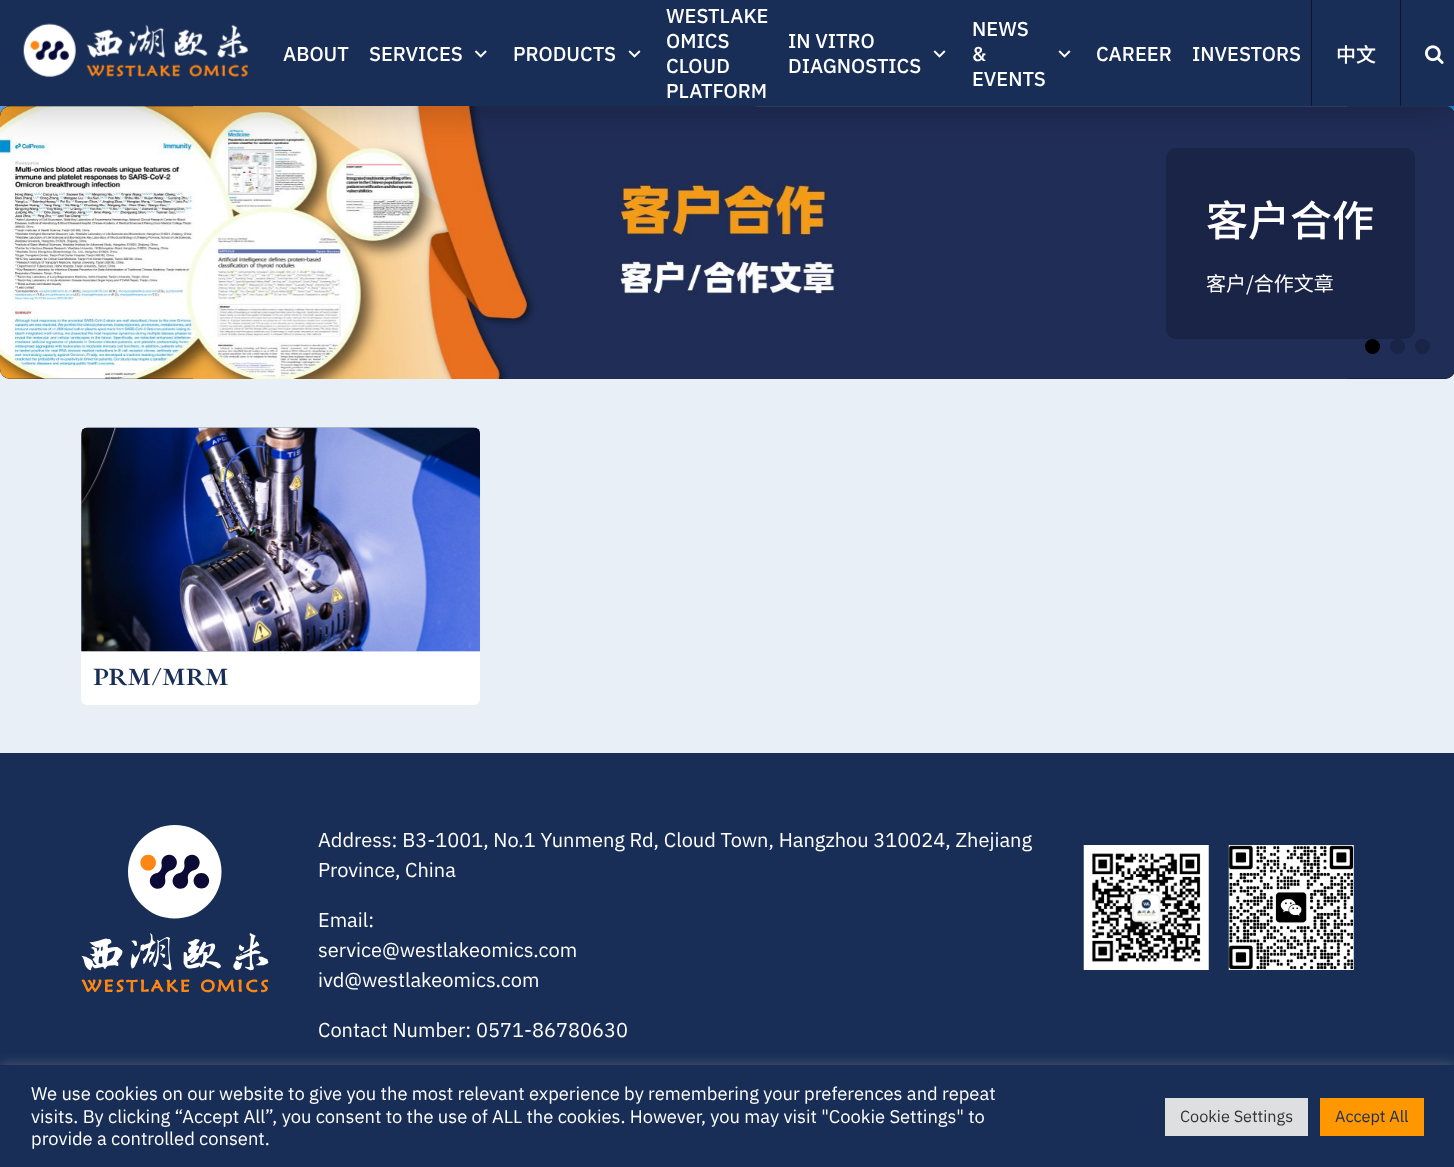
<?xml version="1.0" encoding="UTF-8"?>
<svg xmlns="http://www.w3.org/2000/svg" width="1454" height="1167">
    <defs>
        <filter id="blur1" x="-50%" y="-200%" width="200%" height="500%"><feGaussianBlur stdDeviation="19"/></filter>
        <filter id="blur2" x="-50%" y="-200%" width="200%" height="500%"><feGaussianBlur stdDeviation="6"/></filter>
    </defs>
    <rect width="100%" height="100%" fill="#E8EFF6"/>
    <image x="0" y="106" width="1454" height="10" href="img_05.png"/>
    <rect x="0" y="106" width="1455" height="273" rx="10" fill="#000000"/>
    <image x="0" y="106" width="1454" height="273" href="img_06.png"/>
    <rect x="1166" y="148" width="249" height="191" rx="10" fill="#1A2446"/>
    <rect x="0" y="6" width="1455" height="107" fill="#000000" fill-opacity="0.2" filter="url(#blur1)"/>
    <rect x="0" y="0" width="1454" height="106" fill="#192E57"/>
    <image x="23" y="23" width="225" height="54" href="img_01.png"/>
    <text x="283" y="61" font-family="IBM Plex Sans" font-size="20" font-weight="500" fill="#FFFFFF">ABOUT</text>
    <text x="369" y="61" font-family="IBM Plex Sans" font-size="20" font-weight="500" fill="#FFFFFF">SERVICES</text>
    <image x="474" y="50" width="13" height="8" href="img_02.png"/>
    <text x="513" y="61" font-family="IBM Plex Sans" font-size="20" font-weight="500" fill="#FFFFFF">PRODUCTS</text>
    <image x="628" y="50" width="13" height="8" href="img_03.png"/>
    <text font-family="IBM Plex Sans" font-size="20" font-weight="500" fill="#FFFFFF">
        <tspan x="666" y="23">WESTLAKE</tspan>
        <tspan x="666" y="48">OMICS</tspan>
        <tspan x="666" y="73">CLOUD</tspan>
        <tspan x="666" y="98">PLATFORM</tspan>
    </text>
    <text x="788" y="48" font-family="IBM Plex Sans" font-size="20" font-weight="500" fill="#FFFFFF">IN VITRO</text>
    <image x="933" y="50" width="13" height="8" href="img_03.png"/>
    <text x="788" y="73" font-family="IBM Plex Sans" font-size="20" font-weight="500" fill="#FFFFFF">DIAGNOSTICS</text>
    <text font-family="IBM Plex Sans" font-size="20" font-weight="500" fill="#FFFFFF">
        <tspan x="972" y="36">NEWS</tspan>
        <tspan x="972" y="61">&amp;</tspan>
    </text>
    <image x="1058" y="50" width="13" height="8" href="img_03.png"/>
    <text x="972" y="86" font-family="IBM Plex Sans" font-size="20" font-weight="500" fill="#FFFFFF">EVENTS</text>
    <text x="1096" y="61" font-family="IBM Plex Sans" font-size="20" font-weight="500" fill="#FFFFFF">CAREER</text>
    <text x="1192" y="61" font-family="IBM Plex Sans" font-size="20" font-weight="500" fill="#FFFFFF">INVESTORS</text>
    <rect x="1311" y="0" width="1" height="106" fill="#0D172C"/>
    <text x="1336" y="62" font-family="Noto Sans SC" font-size="20" font-weight="500" fill="#FFFFFF">中文</text>
    <rect x="1400" y="0" width="1" height="106" fill="#0D172C"/>
    <image x="1425" y="45" width="19" height="19" href="img_04.png"/>
    <text x="1206" y="236" font-family="Noto Sans SC" font-size="42" font-weight="500" fill="#FFFFFF">客户合作</text>
    <text x="1206" y="291" font-family="Noto Sans SC" font-size="20" fill="#FFFFFF">客户/合作文章</text>
    <circle cx="1372.5" cy="346.5" r="7.5" fill="#000000"/>
    <circle cx="1397.5" cy="346.5" r="7.5" fill="#1A2446"/>
    <circle cx="1422.5" cy="346.5" r="7.5" fill="#1A2446"/>
    <rect x="81" y="428" width="399" height="277" rx="6" fill="#FFFFFF"/>
    <image x="81" y="427" width="399" height="225" href="img_07.png"/>
    <image x="81" y="427" width="399" height="225" href="img_08.png"/>
    <text x="93" y="685" font-family="Ibarra Real Nova" font-size="24" font-weight="700" fill="#192E57">PRM/MRM</text>
    <rect x="0" y="753" width="1454" height="312" fill="#192E57"/>
    <image x="81" y="825" width="188" height="168" href="img_09.png"/>
    <text font-family="IBM Plex Sans" font-size="20" fill="#FFFFFF">
        <tspan x="318" y="847">Address: B3-1001, No.1 Yunmeng Rd, Cloud Town, Hangzhou 310024, Zhejiang</tspan>
        <tspan x="318" y="877">Province, China</tspan>
    </text>
    <text font-family="IBM Plex Sans" font-size="20" fill="#FFFFFF">
        <tspan x="318" y="927">Email:</tspan>
        <tspan x="318" y="957">service@westlakeomics.com</tspan>
        <tspan x="318" y="987">ivd@westlakeomics.com</tspan>
    </text>
    <text x="318" y="1037" font-family="IBM Plex Sans" font-size="20" fill="#FFFFFF">Contact Number: 0571-86780630</text>
    <image x="1083" y="845" width="126" height="125" href="img_10.png"/>
    <image x="1228" y="845" width="126" height="125" href="img_11.png"/>
    <rect x="0" y="1064" width="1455" height="102" fill="#ACABAB" fill-opacity="0.3" filter="url(#blur2)"/>
    <rect x="0" y="1065" width="1454" height="102" fill="#192E57"/>
    <text font-family="IBM Plex Sans" font-size="18.33" fill="#FFFFFF">
        <tspan x="31" y="1100">We use cookies on our website to give you the most relevant experience by remembering your preferences and repeat</tspan>
        <tspan x="31" y="1123">visits. By clicking “Accept All”, you consent to the use of ALL the cookies. However, you may visit "Cookie Settings" to</tspan>
        <tspan x="31" y="1145">provide a controlled consent.</tspan>
    </text>
    <rect x="1165" y="1098" width="143" height="38" fill="#DEDFE0"/>
    <text x="1180" y="1122" font-family="IBM Plex Sans" font-size="16.25" fill="#333333">Cookie Settings</text>
    <rect x="1320" y="1098" width="104" height="38" fill="#FF9800"/>
    <text x="1335" y="1122" font-family="IBM Plex Sans" font-size="16.25" fill="#192E57">Accept All</text>
</svg>
